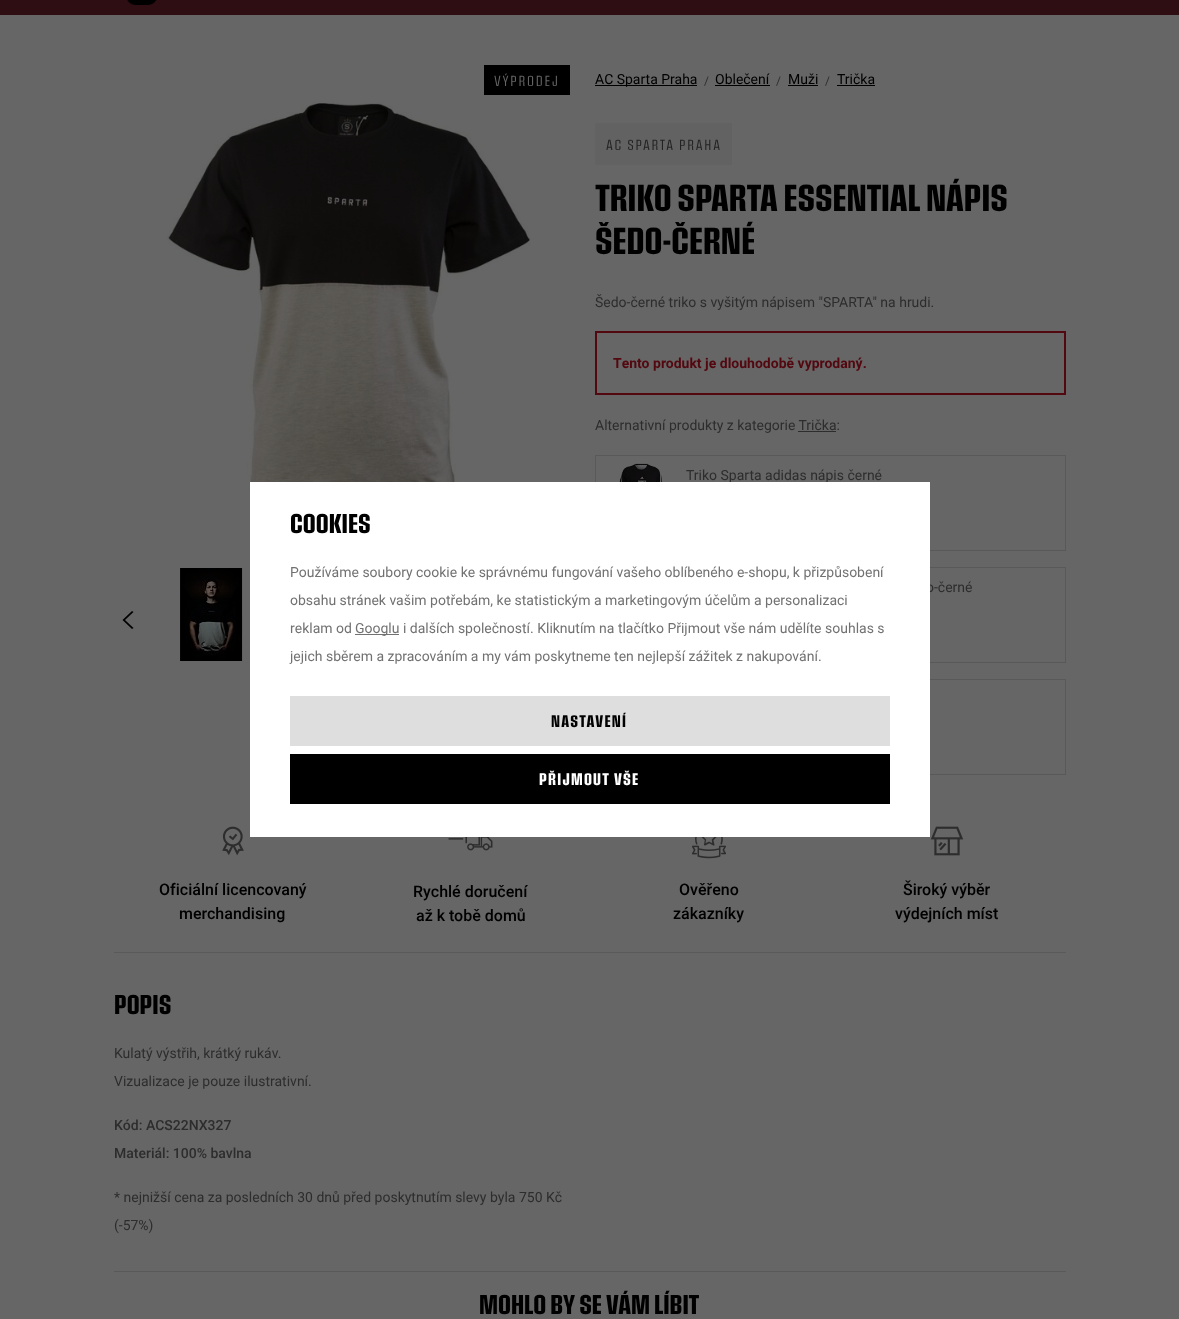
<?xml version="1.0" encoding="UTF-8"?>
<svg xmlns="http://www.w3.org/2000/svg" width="1179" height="1319">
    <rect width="100%" height="100%" fill="#666666"/>
    <rect x="0" y="0" width="1179" height="15" fill="#2F0E13"/>
    <image x="127" y="0" width="30" height="5" href="img_01.png"/>
    <rect x="484" y="65" width="86" height="30" fill="#000000"/>
    <text x="494" y="86" font-family="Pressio" font-size="14" letter-spacing="1.7" fill="#666666">VÝPRODEJ</text>
    <image x="167" y="102" width="364" height="400" href="img_02.png"/>
    <path d="M 133.5 612 L 125 620 L 133.5 628 L 132 629 L 122.5 620 L 132 611 Z" fill="#000000"/>
    <image x="180" y="568" width="63" height="93" href="img_03.png"/>
    <rect x="595" y="85" width="102" height="1" fill="#000000"/>
    <text x="595" y="84" font-family="Roboto" font-size="14" fill="#000000">AC Sparta Praha</text>
    <text x="704" y="85" font-family="Roboto" font-size="12" fill="#2D2D2D">/</text>
    <text x="715" y="84" font-family="Roboto" font-size="14" fill="#000000">Oblečení</text>
    <rect x="715" y="85" width="55" height="1" fill="#000000"/>
    <text x="776" y="85" font-family="Roboto" font-size="12" fill="#2D2D2D">/</text>
    <text x="788" y="84" font-family="Roboto" font-size="14" fill="#000000">Muži</text>
    <rect x="788" y="85" width="30" height="1" fill="#000000"/>
    <text x="825" y="85" font-family="Roboto" font-size="12" fill="#2D2D2D">/</text>
    <text x="837" y="84" font-family="Roboto" font-size="14" fill="#000000">Trička</text>
    <rect x="837" y="85" width="38" height="1" fill="#000000"/>
    <rect x="595" y="123" width="137" height="42" fill="#626262"/>
    <text x="606" y="150" font-family="Pressio" font-size="14" letter-spacing="1.7" fill="#222222">AC SPARTA PRAHA</text>
    <text font-family="Pressio" font-size="36" font-weight="700" fill="#000000">
        <tspan x="595" y="211">TRIKO SPARTA ESSENTIAL NÁPIS</tspan>
        <tspan x="595" y="254">ŠEDO-ČERNÉ</tspan>
    </text>
    <text x="595" y="307" font-family="Roboto" font-size="14" fill="#2D2D2D">Šedo-černé triko s vyšitým nápisem "SPARTA" na hrudi.</text>
    <rect x="596" y="332" width="469" height="62" fill="none" stroke="#530810" stroke-width="2"/>
    <text x="613" y="368" font-family="Roboto" font-size="14" font-weight="700" fill="#530810">Tento produkt je dlouhodobě vyprodaný.</text>
    <text x="595" y="430" font-family="Roboto" font-size="14" fill="#2D2D2D">Alternativní produkty z kategorie Trička:</text>
    <rect x="798" y="431" width="38" height="1" fill="#2D2D2D"/>
    <rect x="595.5" y="455.5" width="470" height="95" fill="none" stroke="#595959"/>
    <image x="618" y="463" width="46" height="19" href="img_04.png"/>
    <text x="686" y="480" font-family="Roboto" font-size="14" fill="#2D2D2D">Triko Sparta adidas nápis černé</text>
    <rect x="595.5" y="567.5" width="470" height="95" fill="none" stroke="#595959"/>
    <text x="926" y="592" font-family="Roboto" font-size="14" fill="#2D2D2D">o-černé</text>
    <rect x="595.5" y="679.5" width="470" height="95" fill="none" stroke="#595959"/>
    <rect x="114" y="952" width="952" height="1" fill="#5A5A5A"/>
    <image x="222" y="826" width="22" height="30" href="img_05.png"/>
    <text x="159" y="895" font-family="Roboto" font-size="16" font-weight="500" fill="#000000">Oficiální licencovaný</text>
    <text x="179" y="919" font-family="Roboto" font-size="16" font-weight="500" fill="#000000">merchandising</text>
    <image x="448" y="837" width="45" height="14" href="img_06.png"/>
    <text x="413" y="897" font-family="Roboto" font-size="16" font-weight="500" fill="#000000">Rychlé doručení</text>
    <text x="416" y="921" font-family="Roboto" font-size="16" font-weight="500" fill="#000000">až k tobě domů</text>
    <image x="692" y="837" width="34" height="22" href="img_07.png"/>
    <text x="679" y="895" font-family="Roboto" font-size="16" font-weight="500" fill="#000000">Ověřeno</text>
    <text x="673" y="919" font-family="Roboto" font-size="16" font-weight="500" fill="#000000">zákazníky</text>
    <image x="930" y="826" width="34" height="30" href="img_08.png"/>
    <text x="903" y="895" font-family="Roboto" font-size="16" font-weight="500" fill="#000000">Široký výběr</text>
    <text x="895" y="919" font-family="Roboto" font-size="16" font-weight="500" fill="#000000">výdejních míst</text>
    <text x="114" y="1014" font-family="Pressio" font-size="26" font-weight="700" fill="#000000">POPIS</text>
    <text x="114" y="1058" font-family="Roboto" font-size="14" fill="#2D2D2D">Kulatý výstřih, krátký rukáv.</text>
    <text x="114" y="1086" font-family="Roboto" font-size="14" fill="#2D2D2D">Vizualizace je pouze ilustrativní.</text>
    <text x="114" y="1130" font-family="Roboto" font-size="14" font-weight="500" fill="#2D2D2D">Kód: ACS22NX327</text>
    <text x="114" y="1158" font-family="Roboto" font-size="14" font-weight="500" fill="#2D2D2D">Materiál: 100% bavlna</text>
    <text x="114" y="1202" font-family="Roboto" font-size="14" fill="#2D2D2D">* nejnižší cena za posledních 30 dnů před poskytnutím slevy byla 750 Kč</text>
    <text x="114" y="1230" font-family="Roboto" font-size="14" fill="#2D2D2D">(-57%)</text>
    <rect x="114" y="1271" width="952" height="1" fill="#595959"/>
    <text x="479" y="1314" font-family="Pressio" font-size="26" font-weight="700" fill="#000000">MOHLO BY SE VÁM LÍBIT</text>
    <rect x="250" y="482" width="680" height="355" fill="#FFFFFF"/>
    <text x="290" y="533" font-family="Pressio" font-size="26" font-weight="700" fill="#000000">COOKIES</text>
    <text x="290" y="577" font-family="Roboto" font-size="14" fill="#717171">Používáme soubory cookie ke správnému fungování vašeho oblíbeného e-shopu, k přizpůsobení</text>
    <text x="290" y="605" font-family="Roboto" font-size="14" fill="#717171">obsahu stránek vašim potřebám, ke statistickým a marketingovým účelům a personalizaci</text>
    <text x="290" y="633" font-family="Roboto" font-size="14" fill="#717171">reklam od</text>
    <rect x="355" y="634" width="44" height="1" fill="#717171"/>
    <text x="355" y="633" font-family="Roboto" font-size="14" fill="#717171">Googlu i dalších společností. Kliknutím na tlačítko Přijmout vše nám udělíte souhlas s</text>
    <text x="290" y="661" font-family="Roboto" font-size="14" fill="#717171">jejich sběrem a zpracováním a my vám poskytneme ten nejlepší zážitek z nakupování.</text>
    <rect x="290" y="696" width="600" height="50" fill="#DEDEDE"/>
    <text x="551" y="727" font-family="Pressio" font-size="16" font-weight="700" letter-spacing="1.25" fill="#000000">NASTAVENÍ</text>
    <rect x="290" y="754" width="600" height="50" fill="#000000"/>
    <text x="539" y="785" font-family="Pressio" font-size="16" font-weight="700" letter-spacing="1.25" fill="#FFFFFF">PŘIJMOUT VŠE</text>
</svg>
